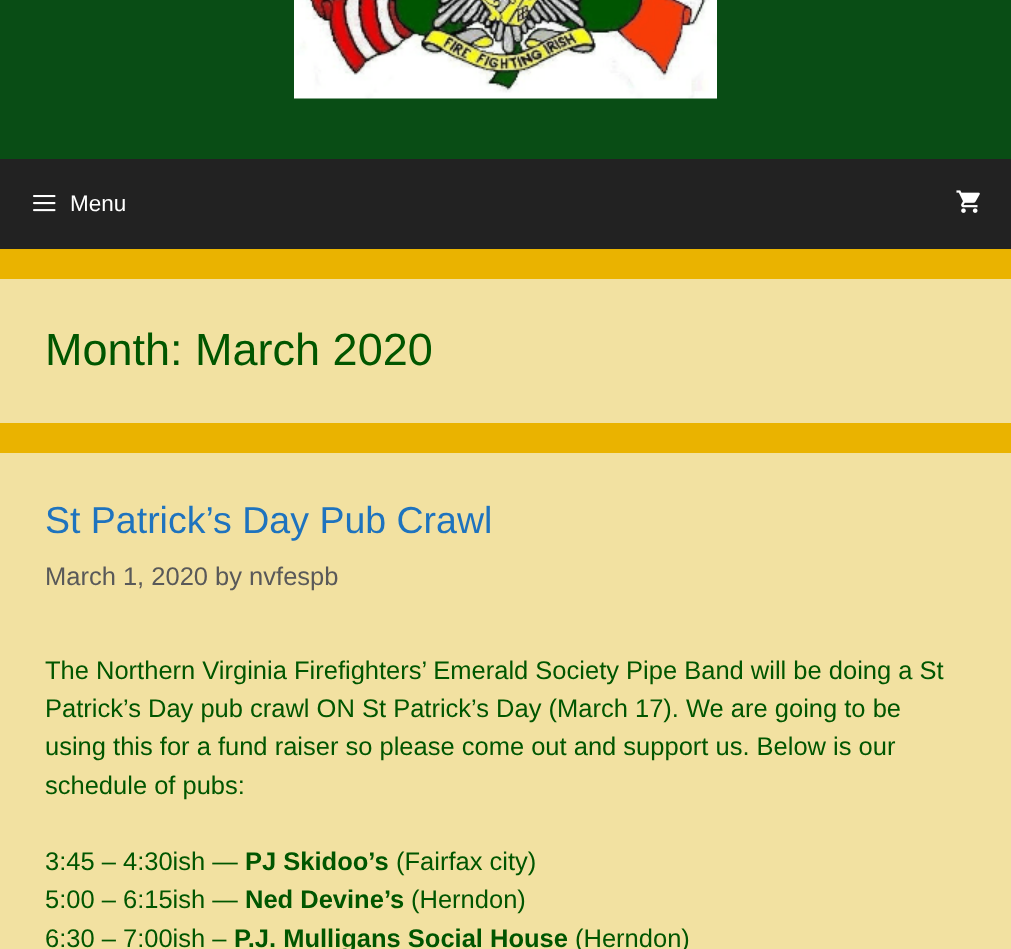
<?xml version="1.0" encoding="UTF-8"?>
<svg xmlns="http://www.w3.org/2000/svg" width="1011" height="949">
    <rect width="100%" height="100%" fill="#EAB300"/>
    <rect x="0" y="0" width="1011" height="159" fill="#094D15"/>
    <image x="294" y="0" width="423" height="99" href="img_01.png"/>
    <rect x="0" y="159" width="1011" height="90" fill="#222222"/>
    <image x="33" y="195" width="23" height="17" href="img_02.png"/>
    <text x="70" y="211" font-family="Liberation Sans" font-size="22.5" fill="#FFFFFF">Menu</text>
    <image x="956" y="190" width="24" height="23" href="img_03.png"/>
    <rect x="0" y="279" width="1011" height="144" fill="#F2E1A1"/>
    <text x="45" y="365" font-family="Liberation Sans" font-size="45" fill="#015600">Month: March 2020</text>
    <rect x="0" y="453" width="1011" height="496" fill="#F2E1A1"/>
    <text x="45" y="533" font-family="Liberation Sans" font-size="37.5" fill="#1E73BE">St Patrick’s Day Pub Crawl</text>
    <text x="45" y="585" font-family="Liberation Sans" font-size="25.5" fill="#595959">March 1, 2020 by nvfespb</text>
    <text font-family="Liberation Sans" font-size="25.5" fill="#015600">
        <tspan x="45" y="679">The Northern Virginia Firefighters’ Emerald Society Pipe Band will be doing a St</tspan>
        <tspan x="45" y="717">Patrick’s Day pub crawl ON St Patrick’s Day (March 17). We are going to be</tspan>
        <tspan x="45" y="755">using this for a fund raiser so please come out and support us. Below is our</tspan>
        <tspan x="45" y="794">schedule of pubs:</tspan>
    </text>
    <text x="45" y="870" font-family="Liberation Sans" font-size="25.5" fill="#015600">3:45 – 4:30ish —</text>
    <text x="245" y="870" font-family="Liberation Sans" font-size="25.5" font-weight="700" fill="#015600">PJ Skidoo’s</text>
    <text x="396" y="870" font-family="Liberation Sans" font-size="25.5" fill="#015600">(Fairfax city)</text>
    <text x="45" y="908" font-family="Liberation Sans" font-size="25.5" fill="#015600">5:00 – 6:15ish —</text>
    <text x="245" y="908" font-family="Liberation Sans" font-size="25.5" font-weight="700" fill="#015600">Ned Devine’s</text>
    <text x="411" y="908" font-family="Liberation Sans" font-size="25.5" fill="#015600">(Herndon)</text>
    <text x="45" y="947" font-family="Liberation Sans" font-size="25.5" fill="#015600">6:30 – 7:00ish –</text>
    <text x="234" y="947" font-family="Liberation Sans" font-size="25.5" font-weight="700" fill="#015600">P.J. Mulligans Social House</text>
    <text x="575" y="947" font-family="Liberation Sans" font-size="25.5" fill="#015600">(Herndon)</text>
</svg>
